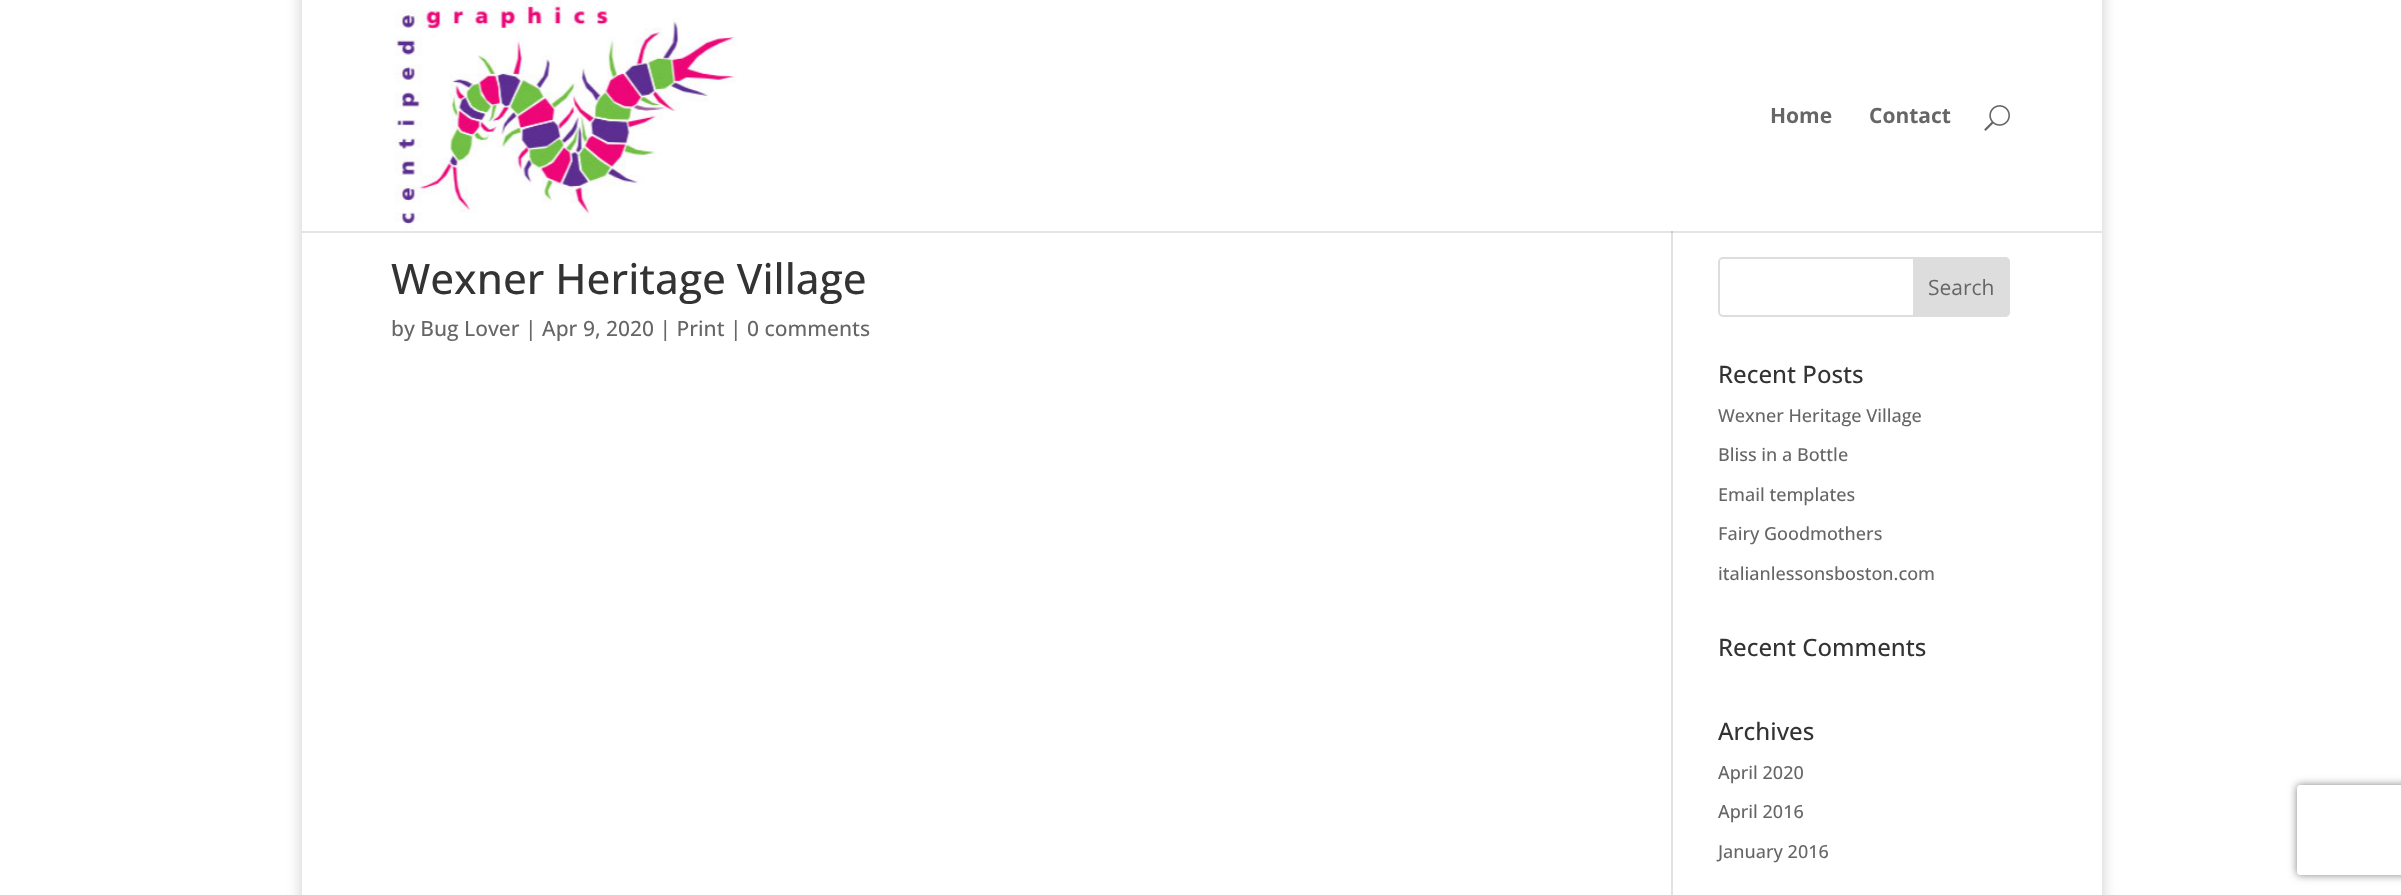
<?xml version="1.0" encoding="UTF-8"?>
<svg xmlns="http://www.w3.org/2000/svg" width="2401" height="895">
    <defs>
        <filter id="blur1" x="-50%" y="-200%" width="200%" height="500%"><feGaussianBlur stdDeviation="7.5"/></filter>
        <clipPath id="clip1"><path d="M 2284 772 H 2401 V 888 H 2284 Z M 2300 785 H 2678 C 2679.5 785 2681 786.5 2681 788 V 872 C 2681 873.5 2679.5 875 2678 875 H 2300 C 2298.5 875 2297 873.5 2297 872 V 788 C 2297 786.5 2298.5 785 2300 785 Z" clip-rule="evenodd"/></clipPath>
        <filter id="blur2" x="-50%" y="-200%" width="200%" height="500%"><feGaussianBlur stdDeviation="4"/></filter>
    </defs>
    <rect width="100%" height="100%" fill="#FFFFFF"/>
    <rect x="302" y="-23" width="1800" height="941" fill="#000000" fill-opacity="0.2" filter="url(#blur1)"/>
    <rect x="302" y="0" width="1800" height="895" fill="#FFFFFF"/>
    <rect x="1671" y="231" width="2" height="664" fill="#E2E2E2"/>
    <path d="M 302 231 V 233 H 2102 V 2 V 231 Z" fill="#000000" fill-opacity="0.1"/>
    <image x="394" y="0" width="343" height="230" href="img_01.png"/>
    <text x="1770" y="123" font-family="Open Sans" font-size="21" font-weight="700" fill="#666666">Home</text>
    <text x="1869" y="123" font-family="Open Sans" font-size="21" font-weight="700" fill="#666666">Contact</text>
    <image x="1984" y="105" width="26" height="26" href="img_02.png"/>
    <text x="391" y="294" font-family="Open Sans" font-size="42" font-weight="500" fill="#333333">Wexner Heritage Village</text>
    <text x="391" y="336" font-family="Open Sans" font-size="21" font-weight="500" fill="#666666">by Bug Lover | Apr 9, 2020 | Print | 0 comments</text>
    <rect x="1719" y="258" width="290" height="58" rx="4" fill="none" stroke="#DDDDDD" stroke-width="2"/>
    <path d="M 1914 258 H 2005 C 2007 258 2009 260 2009 262 V 312 C 2009 314 2007 316 2005 316 H 1914 Z" fill="#DDDDDD" stroke="#DDDDDD" stroke-width="2"/>
    <text x="1928" y="295" font-family="Open Sans" font-size="21" fill="#666666">Search</text>
    <text x="1718" y="383" font-family="Open Sans" font-size="24" font-weight="500" fill="#333333">Recent Posts</text>
    <text x="1718" y="422" font-family="Open Sans" font-size="18" font-weight="500" fill="#666666">Wexner Heritage Village</text>
    <text x="1718" y="461" font-family="Open Sans" font-size="18" font-weight="500" fill="#666666">Bliss in a Bottle</text>
    <text x="1718" y="501" font-family="Open Sans" font-size="18" font-weight="500" fill="#666666">Email templates</text>
    <text x="1718" y="540" font-family="Open Sans" font-size="18" font-weight="500" fill="#666666">Fairy Goodmothers</text>
    <text x="1718" y="580" font-family="Open Sans" font-size="18" font-weight="500" fill="#666666">italianlessonsboston.com</text>
    <text x="1718" y="656" font-family="Open Sans" font-size="24" font-weight="500" fill="#333333">Recent Comments</text>
    <text x="1718" y="740" font-family="Open Sans" font-size="24" font-weight="500" fill="#333333">Archives</text>
    <text x="1718" y="779" font-family="Open Sans" font-size="18" font-weight="500" fill="#666666">April 2020</text>
    <text x="1718" y="818" font-family="Open Sans" font-size="18" font-weight="500" fill="#666666">April 2016</text>
    <text x="1718" y="858" font-family="Open Sans" font-size="18" font-weight="500" fill="#666666">January 2016</text>
    <g clip-path="url(#clip1)">
        <rect x="2297" y="785" width="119" height="90" rx="3" fill="#808080" filter="url(#blur2)"/>
    </g>
</svg>
